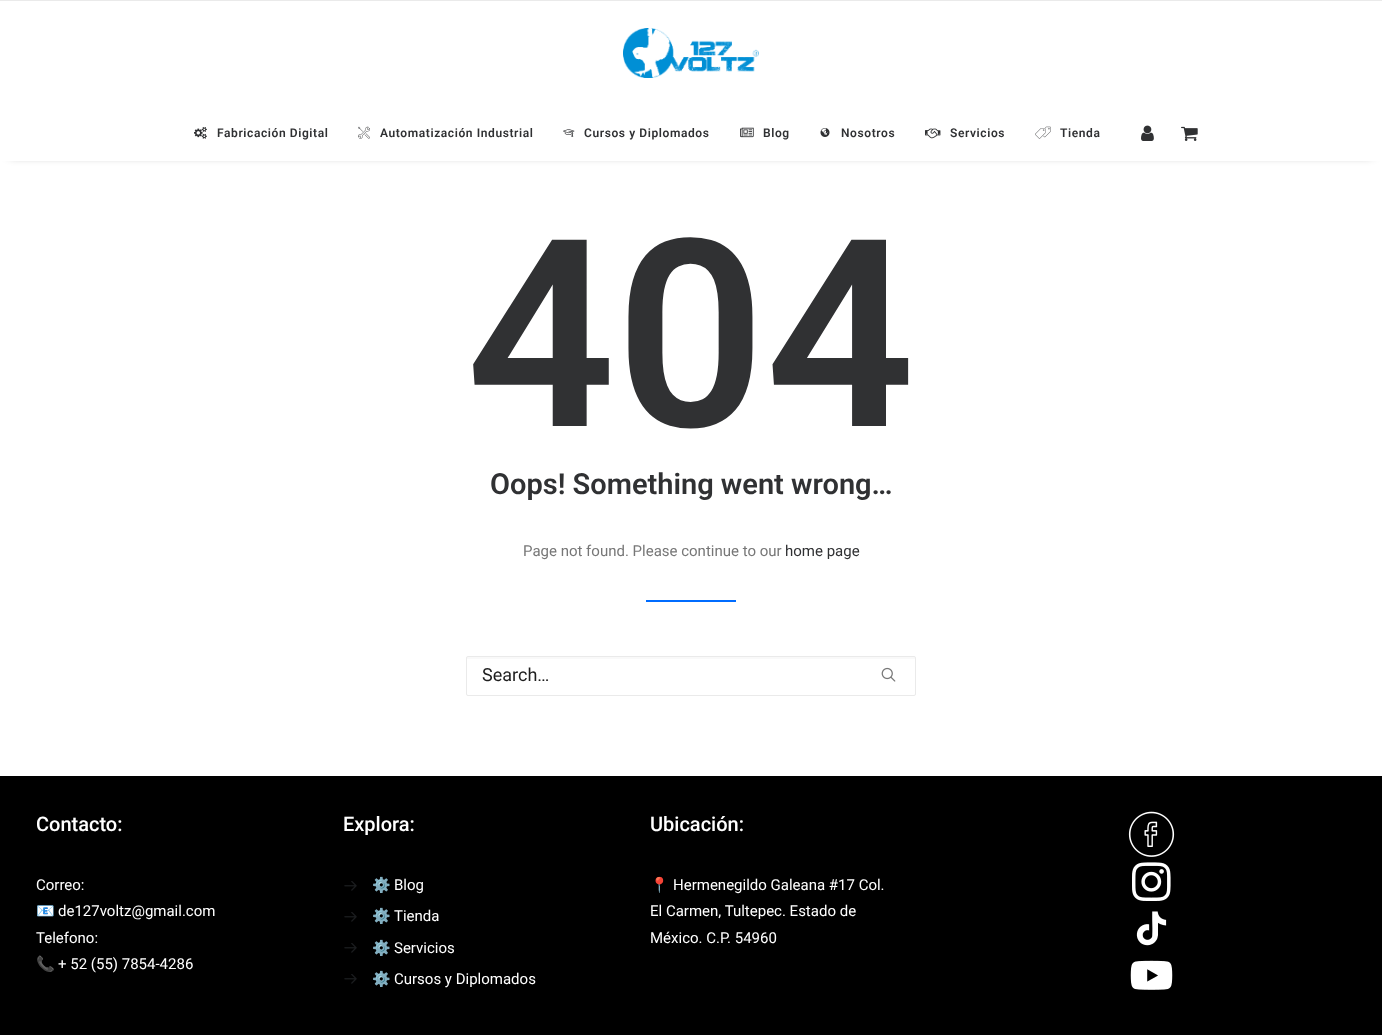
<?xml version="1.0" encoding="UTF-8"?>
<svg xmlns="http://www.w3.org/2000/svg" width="1382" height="1035">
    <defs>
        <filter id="blur1" x="-50%" y="-200%" width="200%" height="500%"><feGaussianBlur stdDeviation="5"/></filter>
    </defs>
    <rect width="100%" height="100%" fill="#FFFFFF"/>
    <rect x="0" y="0" width="1382" height="1" fill="#EAEAEA"/>
    <image x="623" y="28" width="136" height="50" href="img_01.png"/>
    <rect x="10" y="119" width="1362" height="36" fill="#000000" fill-opacity="0.6" filter="url(#blur1)"/>
    <rect x="0" y="108" width="1382" height="53" fill="#FFFFFF"/>
    <image x="194" y="127" width="13" height="12" href="img_02.png"/>
    <text x="217" y="137" font-family="Roboto" font-size="12" font-weight="600" letter-spacing="0.6" fill="#303133">Fabricación Digital</text>
    <image x="358" y="126" width="12" height="13" href="img_03.png"/>
    <text x="380" y="137" font-family="Roboto" font-size="12" font-weight="600" letter-spacing="0.6" fill="#303133">Automatización Industrial</text>
    <image x="563" y="129" width="12" height="8" href="img_04.png"/>
    <text x="584" y="137" font-family="Roboto" font-size="12" font-weight="600" letter-spacing="0.6" fill="#303133">Cursos y Diplomados</text>
    <image x="740" y="127" width="14" height="11" href="img_05.png"/>
    <text x="763" y="137" font-family="Roboto" font-size="12" font-weight="600" letter-spacing="0.6" fill="#303133">Blog</text>
    <image x="820" y="128" width="10" height="9" href="img_06.png"/>
    <text x="841" y="137" font-family="Roboto" font-size="12" font-weight="600" letter-spacing="0.6" fill="#303133">Nosotros</text>
    <image x="925" y="128" width="16" height="11" href="img_07.png"/>
    <text x="950" y="137" font-family="Roboto" font-size="12" font-weight="600" letter-spacing="0.6" fill="#303133">Servicios</text>
    <image x="1035" y="126" width="16" height="13" href="img_08.png"/>
    <text x="1060" y="137" font-family="Roboto" font-size="12" font-weight="600" letter-spacing="0.6" fill="#303133">Tienda</text>
    <image x="1141" y="125" width="13" height="16" href="img_09.png"/>
    <image x="1181" y="126" width="17" height="15" href="img_10.png"/>
    <text x="466" y="426" font-family="Roboto" font-size="262" font-weight="600" fill="#303133">404</text>
    <text x="490" y="494" font-family="Roboto" font-size="29" font-weight="600" fill="#303133">Oops! Something went wrong…</text>
    <text x="523" y="556" font-family="Roboto" font-size="15" fill="#777777">Page not found. Please continue to our</text>
    <text x="785" y="556" font-family="Roboto" font-size="15" fill="#303133">home page</text>
    <rect x="646" y="600" width="90" height="2" fill="#006CFF"/>
    <path d="M 468 659 H 914 C 915 659 915 659 915 660 C 915 659 915 657 914 657 H 468 H 467 V 660 C 467 659 467 659 468 659 Z" fill="#F9F9F9"/>
    <rect x="466.5" y="656.5" width="449" height="39" rx="1.5" fill="none" stroke="#EAEAEA"/>
    <text x="482" y="681" font-family="Roboto" font-size="18" fill="#1E1E1E">Search…</text>
    <image x="881" y="667" width="15" height="15" href="img_11.png"/>
    <rect x="0" y="776" width="1382" height="259" fill="#000000"/>
    <text x="36" y="831" font-family="Roboto" font-size="20" font-weight="500" fill="#FFFFFF">Contacto:</text>
    <text x="36" y="890" font-family="Roboto" font-size="15" fill="#FFFFFF">Correo:</text>
    <text x="36" y="916" font-family="Noto Color Emoji" font-size="15" fill="#FFFFFF">📧</text>
    <text x="58" y="916" font-family="Roboto" font-size="15" fill="#FFFFFF">de127voltz@gmail.com</text>
    <text x="36" y="943" font-family="Roboto" font-size="15" fill="#FFFFFF">Telefono:</text>
    <text x="36" y="969" font-family="Noto Color Emoji" font-size="15" fill="#FFFFFF">📞</text>
    <text x="58" y="969" font-family="Roboto" font-size="15" fill="#FFFFFF">+ 52 (55) 7854-4286</text>
    <text x="343" y="831" font-family="Roboto" font-size="20" font-weight="500" fill="#FFFFFF">Explora:</text>
    <image x="344" y="881" width="13" height="10" href="img_12.png"/>
    <text x="372" y="890" font-family="Noto Color Emoji" font-size="15" fill="#FFFFFF">⚙️</text>
    <text x="394" y="890" font-family="Roboto" font-size="15" fill="#FFFFFF">Blog</text>
    <image x="344" y="912" width="13" height="10" href="img_12.png"/>
    <text x="372" y="921" font-family="Noto Color Emoji" font-size="15" fill="#FFFFFF">⚙️</text>
    <text x="394" y="921" font-family="Roboto" font-size="15" fill="#FFFFFF">Tienda</text>
    <image x="344" y="943" width="13" height="10" href="img_12.png"/>
    <text x="372" y="953" font-family="Noto Color Emoji" font-size="15" fill="#FFFFFF">⚙️</text>
    <text x="394" y="953" font-family="Roboto" font-size="15" fill="#FFFFFF">Servicios</text>
    <image x="344" y="974" width="13" height="10" href="img_12.png"/>
    <text x="372" y="984" font-family="Noto Color Emoji" font-size="15" fill="#FFFFFF">⚙️</text>
    <text x="394" y="984" font-family="Roboto" font-size="15" fill="#FFFFFF">Cursos y Diplomados</text>
    <text x="650" y="831" font-family="Roboto" font-size="20" font-weight="500" fill="#FFFFFF">Ubicación:</text>
    <text x="650" y="890" font-family="Noto Color Emoji" font-size="15" fill="#FFFFFF">📍</text>
    <text x="673" y="890" font-family="Roboto" font-size="15" fill="#FFFFFF">Hermenegildo Galeana #17 Col.</text>
    <text font-family="Roboto" font-size="15" fill="#FFFFFF">
        <tspan x="650" y="916">El Carmen, Tultepec. Estado de</tspan>
        <tspan x="650" y="943">México. C.P. 54960</tspan>
    </text>
    <image x="1128" y="811" width="47" height="46" href="img_13.png"/>
    <image x="1132" y="862" width="39" height="39" href="img_14.png"/>
    <image x="1136" y="911" width="31" height="35" href="img_15.png"/>
    <image x="1130" y="960" width="43" height="30" href="img_16.png"/>
</svg>
